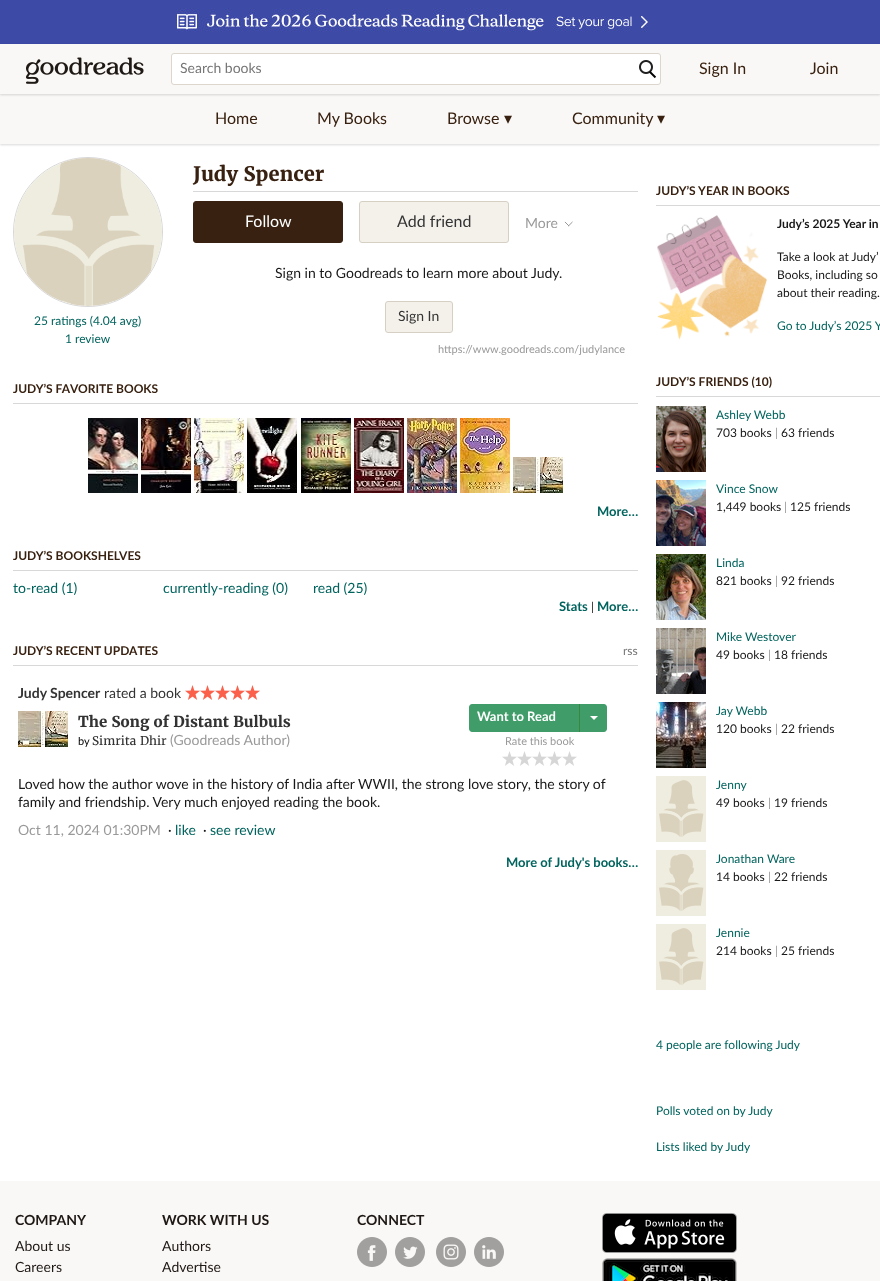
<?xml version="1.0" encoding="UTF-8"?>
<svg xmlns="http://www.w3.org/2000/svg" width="880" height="1281">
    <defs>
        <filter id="blur1" x="-50%" y="-200%" width="200%" height="500%"><feGaussianBlur stdDeviation="1"/></filter>
    </defs>
    <rect width="100%" height="100%" fill="#FFFFFF"/>
    <rect x="0" y="0" width="880" height="44" fill="#3D4AA6"/>
    <image x="176" y="8" width="472" height="24" href="img_01.png"/>
    <rect x="0" y="95" width="880" height="50" fill="#000000" fill-opacity="0.15" filter="url(#blur1)"/>
    <rect x="0" y="94" width="880" height="50" fill="#FAF8F6"/>
    <rect x="0" y="45" width="880" height="50" fill="#000000" fill-opacity="0.15" filter="url(#blur1)"/>
    <rect x="0" y="44" width="880" height="50" fill="#FAF8F6"/>
    <image x="26" y="57" width="118" height="27" href="img_02.png"/>
    <rect x="171.5" y="53.5" width="489" height="31" rx="2.5" fill="#FFFFFF" stroke="#DCD6CC"/>
    <text x="180" y="73" font-family="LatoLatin" font-size="14" fill="#767676">Search books</text>
    <image x="639" y="60" width="18" height="19" href="img_03.png"/>
    <text x="699" y="74" font-family="LatoLatin" font-size="16" fill="#382110">Sign In</text>
    <text x="810" y="74" font-family="LatoLatin" font-size="16" fill="#382110">Join</text>
    <text x="215" y="124" font-family="LatoLatin" font-size="16" fill="#382110">Home</text>
    <text x="317" y="124" font-family="LatoLatin" font-size="16" fill="#382110">My Books</text>
    <text x="447" y="124" font-family="LatoLatin" font-size="16" fill="#382110">Browse</text>
    <text x="504" y="124" font-family="DejaVu Sans" font-size="16" fill="#382110">▾</text>
    <text x="572" y="124" font-family="LatoLatin" font-size="16" fill="#382110">Community</text>
    <text x="657" y="124" font-family="DejaVu Sans" font-size="16" fill="#382110">▾</text>
    <circle cx="88" cy="232" r="74.5" fill="none" stroke="#D8D8D8"/>
    <image x="14" y="158" width="148" height="148" href="img_04.png"/>
    <text x="34" y="325" font-family="LatoLatin" font-size="12" fill="#00635D">25 ratings (4.04 avg)</text>
    <text x="65" y="343" font-family="LatoLatin" font-size="12" fill="#00635D">1 review</text>
    <rect x="193" y="191" width="445" height="1" fill="#D8D8D8"/>
    <text x="193" y="181" font-family="Merriweather" font-size="20" font-weight="700" fill="#382110">Judy Spencer</text>
    <rect x="193.5" y="201.5" width="149" height="41" rx="2.5" fill="#382110" stroke="#382110"/>
    <text x="245" y="227" font-family="LatoLatin" font-size="16" fill="#FFFFFF">Follow</text>
    <rect x="359.5" y="201.5" width="149" height="41" rx="2.5" fill="#F4F1EA" stroke="#D6D0C4"/>
    <text x="397" y="227" font-family="LatoLatin" font-size="16" fill="#333333">Add friend</text>
    <text x="525" y="228" font-family="LatoLatin" font-size="14" fill="#999999">More</text>
    <image x="564" y="221" width="9" height="6" href="img_05.png"/>
    <text x="275" y="278" font-family="LatoLatin" font-size="14" fill="#181818">Sign in to Goodreads to learn more about Judy.</text>
    <rect x="385.5" y="301.5" width="67" height="31" rx="2.5" fill="#F4F1EA" stroke="#D6D0C4"/>
    <text x="398" y="321" font-family="LatoLatin" font-size="14" fill="#333333">Sign In</text>
    <text x="438" y="353" font-family="LatoLatin" font-size="11" fill="#999999">https://www.goodreads.com/judylance</text>
    <rect x="13" y="403" width="625" height="1" fill="#D8D8D8"/>
    <text x="13" y="393" font-family="LatoLatin" font-size="12" font-weight="700" fill="#382110">JUDY’S FAVORITE BOOKS</text>
    <image x="88" y="418" width="50" height="75" href="img_06.png"/>
    <image x="141" y="418" width="50" height="75" href="img_07.png"/>
    <image x="194" y="418" width="50" height="75" href="img_08.png"/>
    <image x="247" y="418" width="50" height="75" href="img_09.png"/>
    <image x="301" y="418" width="50" height="75" href="img_10.png"/>
    <image x="354" y="418" width="50" height="75" href="img_11.png"/>
    <image x="407" y="418" width="50" height="75" href="img_12.png"/>
    <image x="460" y="418" width="50" height="75" href="img_13.png"/>
    <image x="513" y="457" width="50" height="36" href="img_14.png"/>
    <text x="597" y="516" font-family="LatoLatin" font-size="13" font-weight="700" fill="#00635D">More…</text>
    <rect x="13" y="570" width="625" height="1" fill="#D8D8D8"/>
    <text x="13" y="560" font-family="LatoLatin" font-size="12" font-weight="700" fill="#382110">JUDY’S BOOKSHELVES</text>
    <text x="13" y="593" font-family="LatoLatin" font-size="14" fill="#00635D">to-read (1)</text>
    <text x="163" y="593" font-family="LatoLatin" font-size="14" fill="#00635D">currently-reading (0)</text>
    <text x="313" y="593" font-family="LatoLatin" font-size="14" fill="#00635D">read (25)</text>
    <text x="559" y="611" font-family="LatoLatin" font-size="13" font-weight="700" fill="#00635D">Stats</text>
    <text x="591" y="611" font-family="LatoLatin" font-size="12" fill="#181818">|</text>
    <text x="597" y="611" font-family="LatoLatin" font-size="13" font-weight="700" fill="#00635D">More…</text>
    <rect x="13" y="665" width="625" height="1" fill="#D8D8D8"/>
    <text x="13" y="655" font-family="LatoLatin" font-size="12" font-weight="700" fill="#382110">JUDY’S RECENT UPDATES</text>
    <text x="623" y="655" font-family="LatoLatin" font-size="12" fill="#767676">rss</text>
    <text x="18" y="698" font-family="LatoLatin" font-size="14" font-weight="700" fill="#333333">Judy Spencer</text>
    <text x="104" y="698" font-family="LatoLatin" font-size="14" fill="#333333">rated a book</text>
    <image x="185" y="685" width="15" height="15" href="img_15.png"/>
    <image x="200" y="685" width="15" height="15" href="img_15.png"/>
    <image x="215" y="685" width="15" height="15" href="img_15.png"/>
    <image x="230" y="685" width="15" height="15" href="img_15.png"/>
    <image x="245" y="685" width="15" height="15" href="img_15.png"/>
    <image x="18" y="711" width="50" height="36" href="img_14.png"/>
    <text x="78" y="727" font-family="Merriweather" font-size="15" font-weight="700" fill="#333333">The Song of Distant Bulbuls</text>
    <text x="78" y="745" font-family="LatoLatin" font-size="11" fill="#000000">by</text>
    <text x="92" y="745" font-family="Merriweather" font-size="12" fill="#333333">Simrita Dhir</text>
    <text x="170" y="745" font-family="LatoLatin" font-size="14" fill="#999999">(Goodreads Author)</text>
    <path d="M 472 704 H 579 V 732 H 472 C 470.5 732 469 730.5 469 729 V 707 C 469 705.5 470.5 704 472 704 Z" fill="#409D69"/>
    <text x="477" y="721" font-family="LatoLatin" font-size="13" font-weight="700" fill="#FFFFFF">Want to Read</text>
    <path d="M 579 704 H 604 C 605.5 704 607 705.5 607 707 V 729 C 607 730.5 605.5 732 604 732 H 579 Z" fill="#409D69"/>
    <rect x="579" y="704" width="1" height="28" fill="#38883D"/>
    <image x="590" y="716" width="8" height="4" href="img_16.png"/>
    <text x="505" y="745" font-family="LatoLatin" font-size="11" fill="#999999">Rate this book</text>
    <image x="502" y="751" width="15" height="15" href="img_17.png"/>
    <image x="517" y="751" width="15" height="15" href="img_17.png"/>
    <image x="532" y="751" width="15" height="15" href="img_17.png"/>
    <image x="547" y="751" width="15" height="15" href="img_17.png"/>
    <image x="562" y="751" width="15" height="15" href="img_17.png"/>
    <text font-family="LatoLatin" font-size="14" fill="#181818">
        <tspan x="18" y="789">Loved how the author wove in the history of India after WWII, the strong love story, the story of</tspan>
        <tspan x="18" y="807">family and friendship. Very much enjoyed reading the book.</tspan>
    </text>
    <text x="18" y="835" font-family="LatoLatin" font-size="14" fill="#999999">Oct 11, 2024 01:30PM</text>
    <text x="168" y="835" font-family="LatoLatin" font-size="14" fill="#181818">·</text>
    <text x="175" y="835" font-family="LatoLatin" font-size="14" fill="#00635D">like</text>
    <text x="203" y="835" font-family="LatoLatin" font-size="14" fill="#181818">·</text>
    <text x="210" y="835" font-family="LatoLatin" font-size="14" fill="#00635D">see review</text>
    <text x="506" y="867" font-family="LatoLatin" font-size="13" font-weight="700" fill="#00635D">More of Judy's books…</text>
    <rect x="656" y="205" width="224" height="1" fill="#D8D8D8"/>
    <text x="656" y="195" font-family="LatoLatin" font-size="12" font-weight="700" fill="#382110">JUDY’S YEAR IN BOOKS</text>
    <image x="657" y="215" width="110" height="125" href="img_18.png"/>
    <text x="777" y="228" font-family="LatoLatin" font-size="12" font-weight="700" fill="#181818">Judy’s 2025 Year in</text>
    <text font-family="LatoLatin" font-size="12" fill="#181818">
        <tspan x="777" y="261">Take a look at Judy’</tspan>
        <tspan x="777" y="279">Books, including so</tspan>
        <tspan x="777" y="297">about their reading.</tspan>
    </text>
    <text x="777" y="330" font-family="LatoLatin" font-size="12" fill="#00635D">Go to Judy’s 2025 Y</text>
    <rect x="656" y="396" width="224" height="1" fill="#D8D8D8"/>
    <text x="656" y="386" font-family="LatoLatin" font-size="12" font-weight="700" fill="#382110">JUDY’S FRIENDS (10)</text>
    <image x="656" y="406" width="50" height="66" href="img_19.png"/>
    <text x="716" y="419" font-family="LatoLatin" font-size="12" fill="#00635D">Ashley Webb</text>
    <text x="716" y="437" font-family="LatoLatin" font-size="12" fill="#181818">703 books</text>
    <text x="775" y="437" font-family="LatoLatin" font-size="12" fill="#999999">|</text>
    <text x="781" y="437" font-family="LatoLatin" font-size="12" fill="#181818">63 friends</text>
    <image x="656" y="480" width="50" height="66" href="img_20.png"/>
    <text x="716" y="493" font-family="LatoLatin" font-size="12" fill="#00635D">Vince Snow</text>
    <text x="716" y="511" font-family="LatoLatin" font-size="12" fill="#181818">1,449 books</text>
    <text x="784" y="511" font-family="LatoLatin" font-size="12" fill="#999999">|</text>
    <text x="790" y="511" font-family="LatoLatin" font-size="12" fill="#181818">125 friends</text>
    <image x="656" y="554" width="50" height="66" href="img_21.png"/>
    <text x="716" y="567" font-family="LatoLatin" font-size="12" fill="#00635D">Linda</text>
    <text x="716" y="585" font-family="LatoLatin" font-size="12" fill="#181818">821 books</text>
    <text x="775" y="585" font-family="LatoLatin" font-size="12" fill="#999999">|</text>
    <text x="781" y="585" font-family="LatoLatin" font-size="12" fill="#181818">92 friends</text>
    <image x="656" y="628" width="50" height="66" href="img_22.png"/>
    <text x="716" y="641" font-family="LatoLatin" font-size="12" fill="#00635D">Mike Westover</text>
    <text x="716" y="659" font-family="LatoLatin" font-size="12" fill="#181818">49 books</text>
    <text x="768" y="659" font-family="LatoLatin" font-size="12" fill="#999999">|</text>
    <text x="774" y="659" font-family="LatoLatin" font-size="12" fill="#181818">18 friends</text>
    <image x="656" y="702" width="50" height="66" href="img_23.png"/>
    <text x="716" y="715" font-family="LatoLatin" font-size="12" fill="#00635D">Jay Webb</text>
    <text x="716" y="733" font-family="LatoLatin" font-size="12" fill="#181818">120 books</text>
    <text x="775" y="733" font-family="LatoLatin" font-size="12" fill="#999999">|</text>
    <text x="781" y="733" font-family="LatoLatin" font-size="12" fill="#181818">22 friends</text>
    <image x="656" y="776" width="50" height="66" href="img_24.png"/>
    <text x="716" y="789" font-family="LatoLatin" font-size="12" fill="#00635D">Jenny</text>
    <text x="716" y="807" font-family="LatoLatin" font-size="12" fill="#181818">49 books</text>
    <text x="768" y="807" font-family="LatoLatin" font-size="12" fill="#999999">|</text>
    <text x="774" y="807" font-family="LatoLatin" font-size="12" fill="#181818">19 friends</text>
    <image x="656" y="850" width="50" height="66" href="img_25.png"/>
    <text x="716" y="863" font-family="LatoLatin" font-size="12" fill="#00635D">Jonathan Ware</text>
    <text x="716" y="881" font-family="LatoLatin" font-size="12" fill="#181818">14 books</text>
    <text x="768" y="881" font-family="LatoLatin" font-size="12" fill="#999999">|</text>
    <text x="774" y="881" font-family="LatoLatin" font-size="12" fill="#181818">22 friends</text>
    <image x="656" y="924" width="50" height="66" href="img_24.png"/>
    <text x="716" y="937" font-family="LatoLatin" font-size="12" fill="#00635D">Jennie</text>
    <text x="716" y="955" font-family="LatoLatin" font-size="12" fill="#181818">214 books</text>
    <text x="775" y="955" font-family="LatoLatin" font-size="12" fill="#999999">|</text>
    <text x="781" y="955" font-family="LatoLatin" font-size="12" fill="#181818">25 friends</text>
    <text x="656" y="1049" font-family="LatoLatin" font-size="12" fill="#00635D">4 people are following Judy</text>
    <text x="656" y="1115" font-family="LatoLatin" font-size="12" fill="#00635D">Polls voted on by Judy</text>
    <text x="656" y="1151" font-family="LatoLatin" font-size="12" fill="#00635D">Lists liked by Judy</text>
    <rect x="0" y="1181" width="880" height="100" fill="#FAF8F6"/>
    <text x="15" y="1225" font-family="LatoLatin" font-size="14" font-weight="700" fill="#1E1915">COMPANY</text>
    <text font-family="LatoLatin" font-size="14" fill="#1E1915">
        <tspan x="15" y="1251">About us</tspan>
        <tspan x="15" y="1272">Careers</tspan>
    </text>
    <text x="162" y="1225" font-family="LatoLatin" font-size="14" font-weight="700" fill="#1E1915">WORK WITH US</text>
    <text font-family="LatoLatin" font-size="14" fill="#1E1915">
        <tspan x="162" y="1251">Authors</tspan>
        <tspan x="162" y="1272">Advertise</tspan>
    </text>
    <text x="357" y="1225" font-family="LatoLatin" font-size="14" font-weight="700" fill="#1E1915">CONNECT</text>
    <image x="357" y="1237" width="30" height="30" href="img_26.png"/>
    <image x="395" y="1237" width="30" height="30" href="img_27.png"/>
    <image x="436" y="1237" width="30" height="30" href="img_28.png"/>
    <image x="474" y="1237" width="30" height="30" href="img_29.png"/>
    <image x="602" y="1213" width="135" height="40" href="img_30.png"/>
    <image x="602" y="1258" width="135" height="23" href="img_31.png"/>
</svg>
